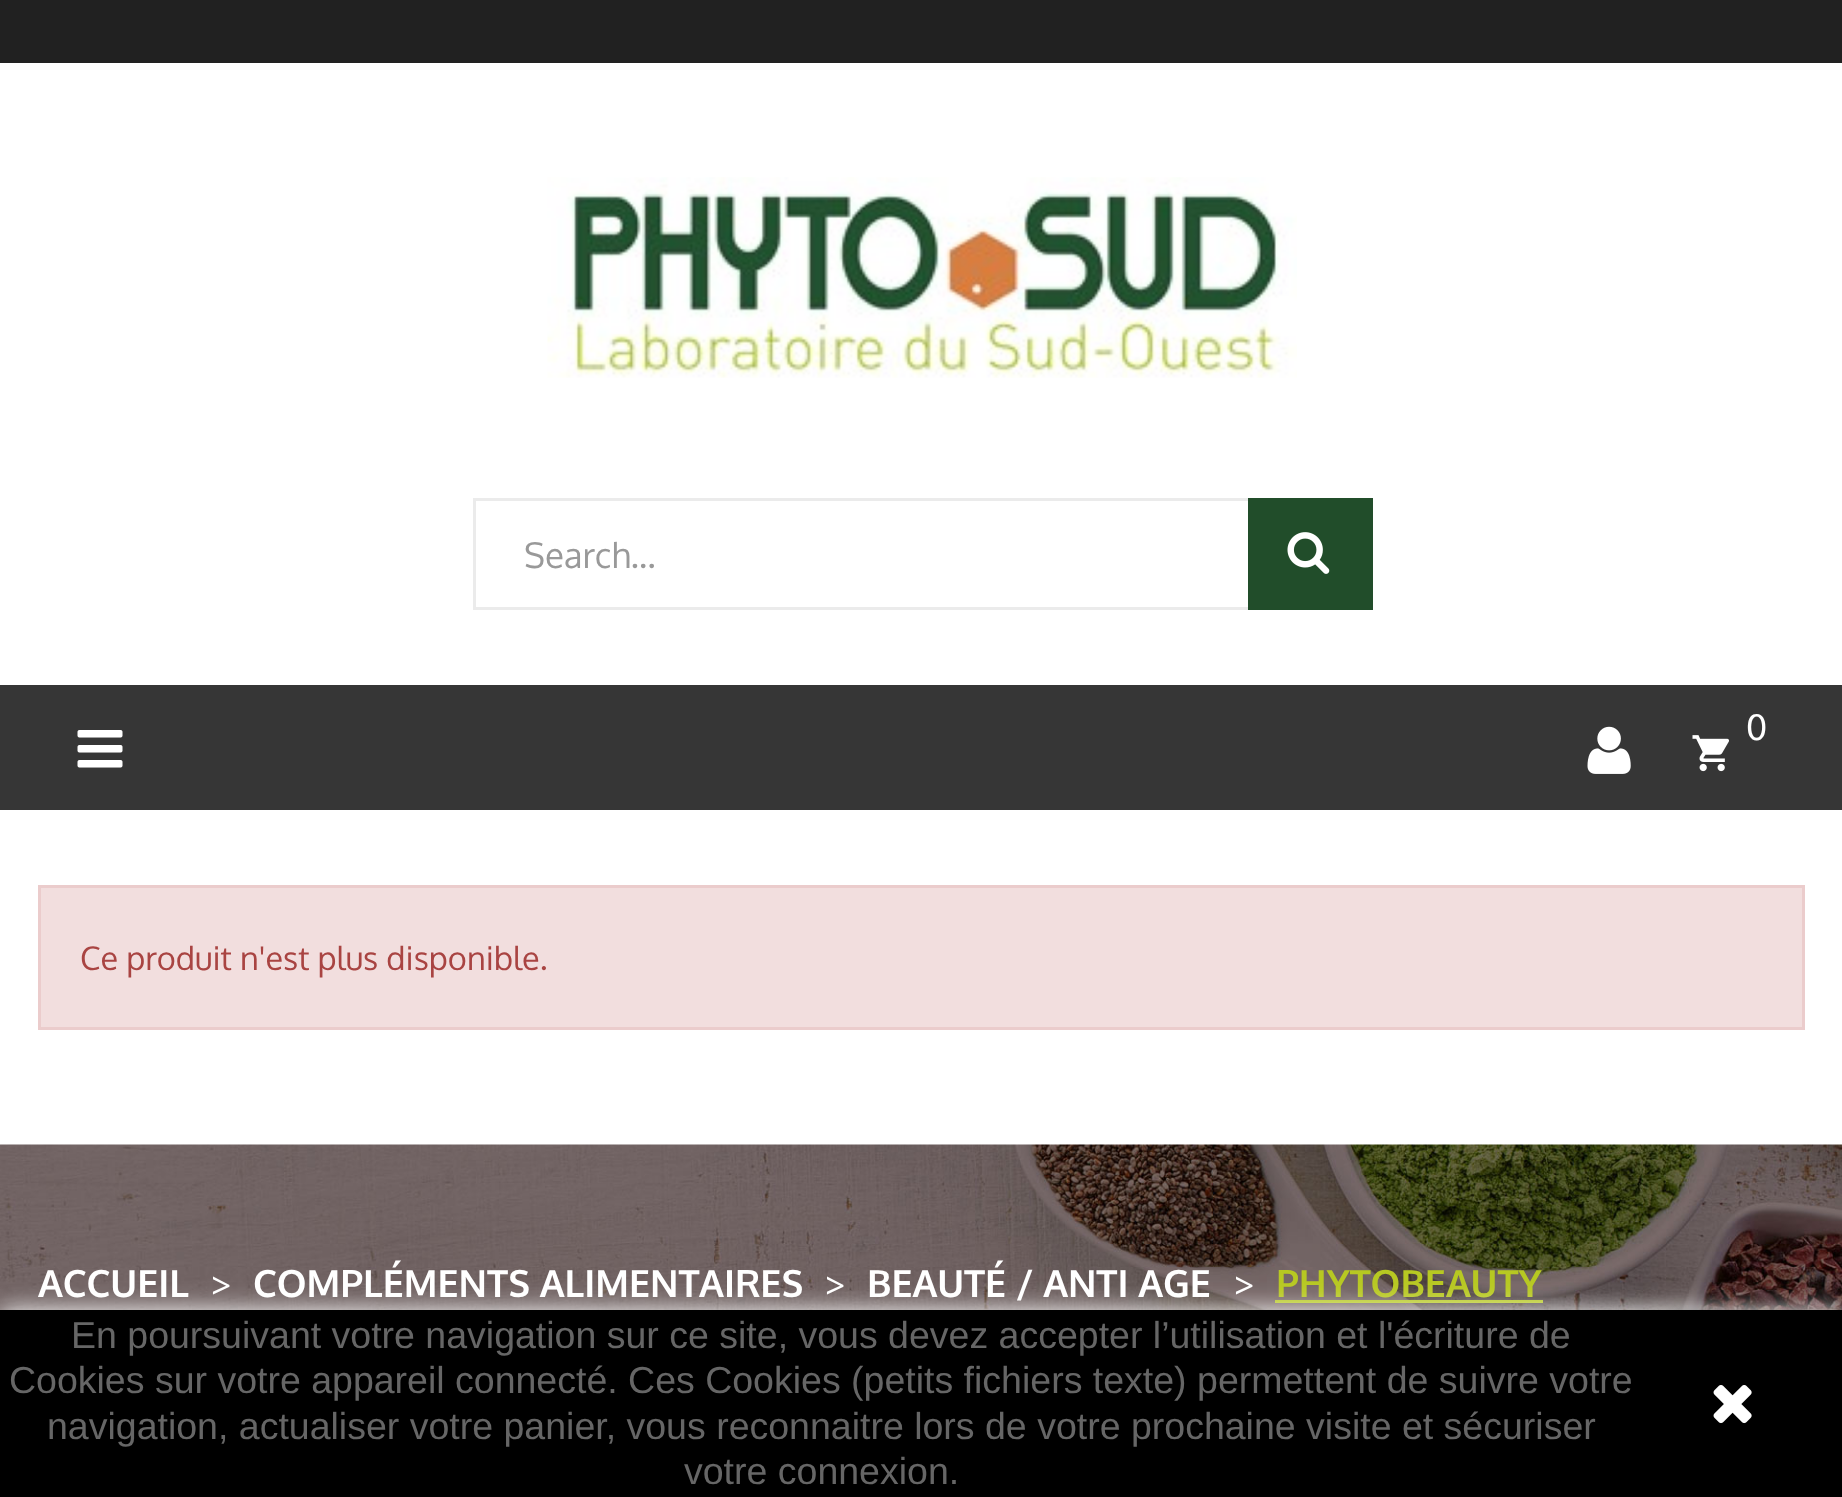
<?xml version="1.0" encoding="UTF-8"?>
<svg xmlns="http://www.w3.org/2000/svg" width="1842" height="1497">
    <defs>
        <filter id="blur1" x="-50%" y="-200%" width="200%" height="500%"><feGaussianBlur stdDeviation="12.5"/></filter>
        <filter id="blur2" x="-50%" y="-200%" width="200%" height="500%"><feGaussianBlur stdDeviation="6"/></filter>
    </defs>
    <rect width="100%" height="100%" fill="#FFFFFF"/>
    <rect x="0" y="0" width="1842" height="63" fill="#212121"/>
    <image x="547" y="177" width="750" height="201" href="img_01.png"/>
    <rect x="474.5" y="499.5" width="897" height="109" fill="none" stroke="#EBEBEB" stroke-width="3"/>
    <text x="524" y="568" font-family="Oxygen" font-size="35" fill="#999999">Search...</text>
    <rect x="1248" y="498" width="125" height="112" fill="#214D2A"/>
    <image x="1287" y="532" width="43" height="42" href="img_02.png"/>
    <rect x="0" y="685" width="1842" height="125" fill="#363636"/>
    <image x="1587" y="726" width="44" height="48" href="img_03.png"/>
    <text x="1746" y="740" font-family="Oxygen" font-size="35" fill="#FFFFFF">0</text>
    <image x="1692" y="735" width="37" height="37" href="img_04.png"/>
    <image x="77" y="730" width="46" height="38" href="img_05.png"/>
    <rect x="39.5" y="886.5" width="1764" height="142" fill="#F2DEDE" stroke="#EBCCCC" stroke-width="3"/>
    <text x="80" y="970" font-family="Oxygen" font-size="32.5" fill="#A94442">Ce produit n'est plus disponible.</text>
    <image x="0" y="1144" width="1842" height="166" href="img_06.png"/>
    <text x="38" y="1297" font-family="Oxygen" font-size="37.5" font-weight="700" fill="#FFFFFF">ACCUEIL</text>
    <text x="211" y="1297" font-family="Oxygen" font-size="35" fill="#FFFFFF">&gt;</text>
    <text x="253" y="1297" font-family="Oxygen" font-size="37.5" font-weight="700" fill="#FFFFFF">COMPLÉMENTS ALIMENTAIRES</text>
    <text x="825" y="1297" font-family="Oxygen" font-size="35" fill="#FFFFFF">&gt;</text>
    <text x="867" y="1297" font-family="Oxygen" font-size="37.5" font-weight="700" fill="#FFFFFF">BEAUTÉ / ANTI AGE</text>
    <text x="1234" y="1297" font-family="Oxygen" font-size="35" fill="#FFFFFF">&gt;</text>
    <text x="1276" y="1297" font-family="Oxygen" font-size="37.5" font-weight="700" fill="#B7C822">PHYTOBEAUTY</text>
    <rect x="1275" y="1300" width="268" height="3" fill="#B7C822"/>
    <rect x="0" y="1310" width="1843" height="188" fill="#FFFFFF" filter="url(#blur1)"/>
    <rect x="1668" y="1313" width="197" height="150" rx="5" fill="#808080" filter="url(#blur2)"/>
    <rect x="0" y="1310" width="1842" height="187" fill="#000000"/>
    <text x="71" y="1348" font-family="Liberation Sans" font-size="37.5" fill="#666666">En poursuivant votre navigation sur ce site, vous devez accepter l’utilisation et l'écriture de</text>
    <text x="9" y="1393" font-family="Liberation Sans" font-size="37.5" fill="#666666">Cookies sur votre appareil connecté. Ces Cookies (petits fichiers texte) permettent de suivre votre</text>
    <text x="47" y="1439" font-family="Liberation Sans" font-size="37.5" fill="#666666">navigation, actualiser votre panier, vous reconnaitre lors de votre prochaine visite et sécuriser</text>
    <text x="684" y="1484" font-family="Liberation Sans" font-size="37.5" fill="#666666">votre connexion.</text>
    <image x="1713" y="1385" width="39" height="39" href="img_07.png"/>
</svg>
